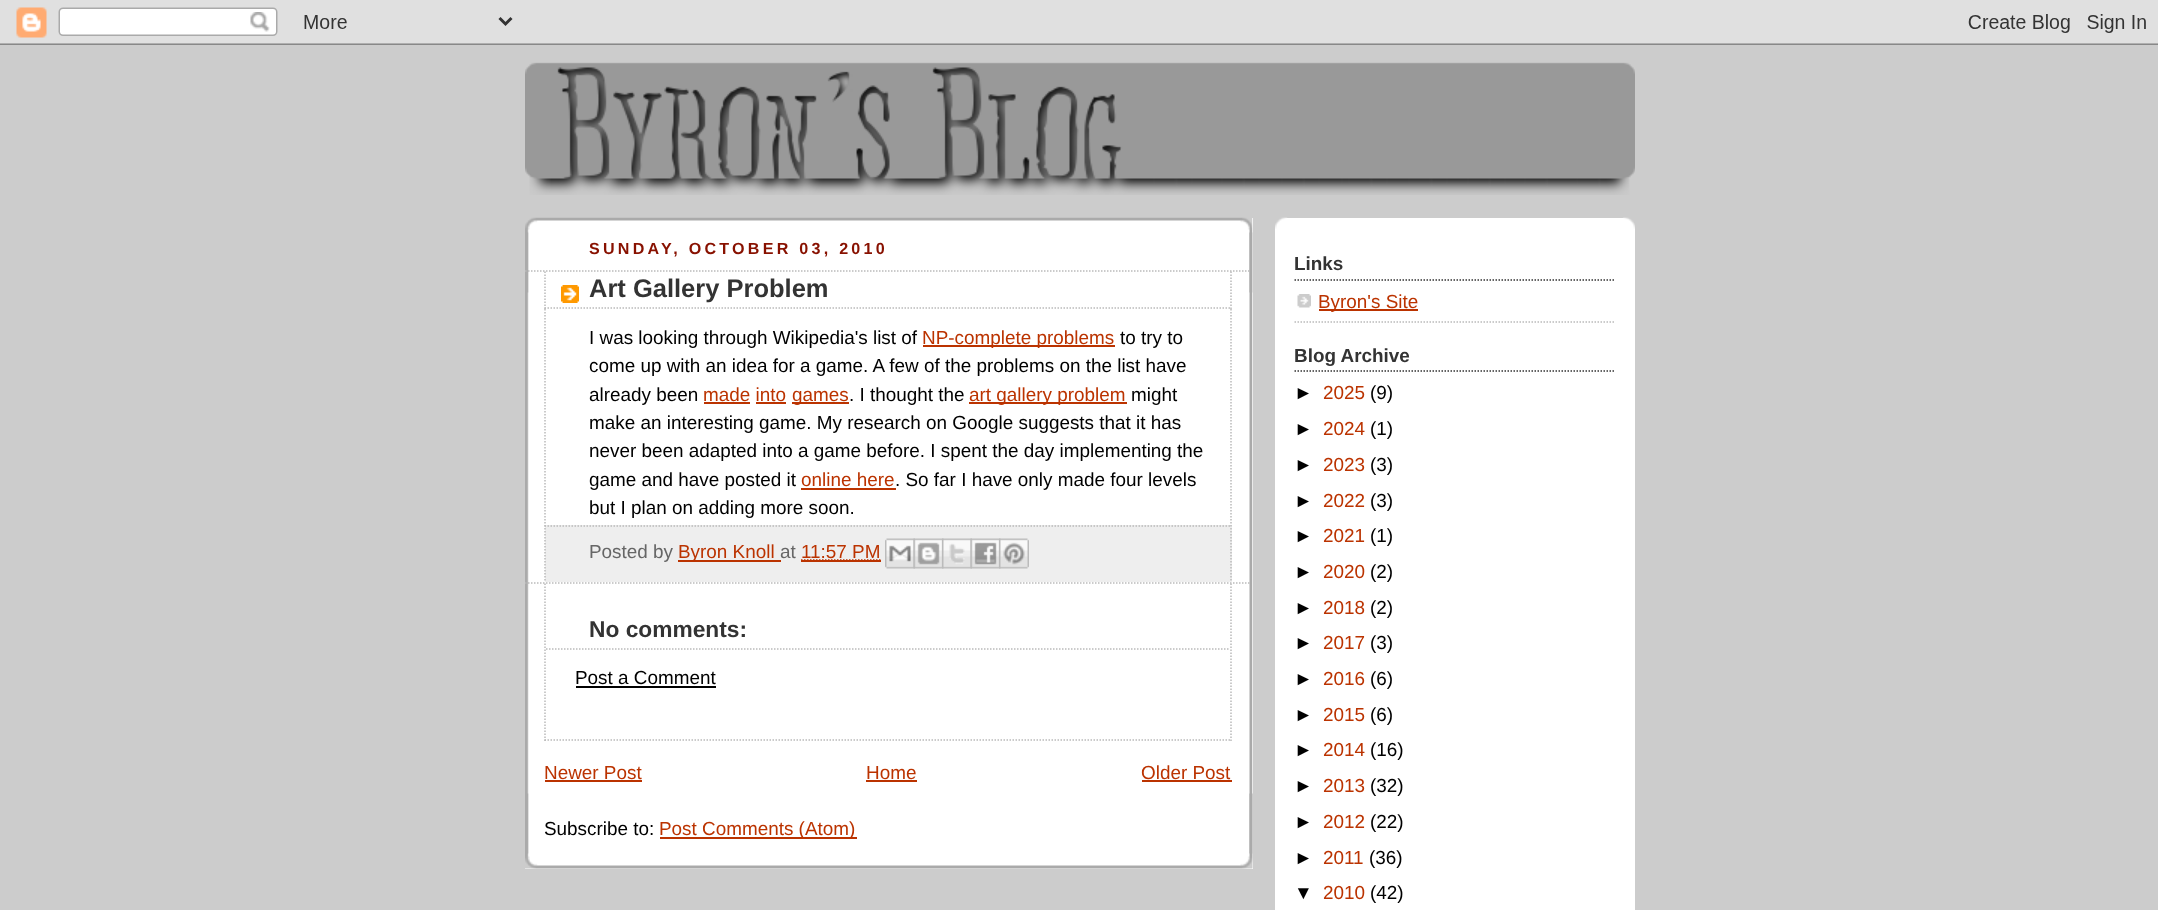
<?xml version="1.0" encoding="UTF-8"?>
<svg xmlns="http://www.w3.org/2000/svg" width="2158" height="910">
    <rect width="100%" height="100%" fill="#CCCCCC"/>
    <image x="0" y="0" width="2158" height="45" href="img_01.png"/>
    <image x="525" y="62" width="1110" height="133" href="img_02.png"/>
    <rect x="525" y="218" width="728" height="651" fill="#FFFFFF"/>
    <image x="525" y="793" width="728" height="76" href="img_03.png"/>
    <image x="525" y="217" width="728" height="76" href="img_04.png"/>
    <image x="525" y="232" width="728" height="622" href="img_05.png"/>
    <text x="589" y="254" font-family="Liberation Sans" font-size="16.1" font-weight="700" letter-spacing="3.25" fill="#881100">SUNDAY, OCTOBER 03, 2010</text>
    <path d="M 525 271 H 1251" fill="none" stroke="#BBBBBB" stroke-width="1.5" stroke-dasharray="1.5 1.5"/>
    <path d="M 525 583 H 1251" fill="none" stroke="#BBBBBB" stroke-width="1.5" stroke-dasharray="1.5 1.5"/>
    <image x="561" y="285" width="18" height="18" href="img_06.png"/>
    <path d="M 1231 271.5 V 309" fill="none" stroke="#BBBBBB" stroke-width="1.5" stroke-dasharray="1.5 1.5"/>
    <path d="M 544.5 308 H 1231.5" fill="none" stroke="#BBBBBB" stroke-width="1.5" stroke-dasharray="1.5 1.5"/>
    <path d="M 545 271.5 V 309" fill="none" stroke="#BBBBBB" stroke-width="1.5" stroke-dasharray="1.5 1.5"/>
    <text x="589" y="297" font-family="Liberation Sans" font-size="25.5" font-weight="700" fill="#333333">Art Gallery Problem</text>
    <path d="M 1231 309 V 525" fill="none" stroke="#BBBBBB" stroke-width="1.5" stroke-dasharray="1.5 1.5"/>
    <path d="M 545 309 V 525" fill="none" stroke="#BBBBBB" stroke-width="1.5" stroke-dasharray="1.5 1.5"/>
    <text x="589" y="344" font-family="Liberation Sans" font-size="18.9" fill="#000000">I was looking through Wikipedia's list of</text>
    <rect x="923" y="345" width="192" height="2" fill="#BB3300"/>
    <text x="922" y="344" font-family="Liberation Sans" font-size="18.9" fill="#BB3300">NP-complete problems</text>
    <text x="1120" y="344" font-family="Liberation Sans" font-size="18.9" fill="#000000">to try to</text>
    <text font-family="Liberation Sans" font-size="18.9" fill="#000000">
        <tspan x="589" y="372">come up with an idea for a game. A few of the problems on the list have</tspan>
        <tspan x="589" y="401">already been</tspan>
    </text>
    <text x="703" y="401" font-family="Liberation Sans" font-size="18.9" fill="#BB3300">made into</text>
    <rect x="704" y="402" width="46" height="2" fill="#BB3300"/>
    <rect x="792" y="402" width="57" height="2" fill="#BB3300"/>
    <text x="792" y="401" font-family="Liberation Sans" font-size="18.9" fill="#BB3300">games</text>
    <text x="849" y="401" font-family="Liberation Sans" font-size="18.9" fill="#000000">. I thought the</text>
    <rect x="969" y="402" width="158" height="2" fill="#BB3300"/>
    <text x="969" y="401" font-family="Liberation Sans" font-size="18.9" fill="#BB3300">art gallery problem</text>
    <text x="1131" y="401" font-family="Liberation Sans" font-size="18.9" fill="#000000">might</text>
    <rect x="756" y="402" width="30" height="2" fill="#BB3300"/>
    <text font-family="Liberation Sans" font-size="18.9" fill="#000000">
        <tspan x="589" y="429">make an interesting game. My research on Google suggests that it has</tspan>
        <tspan x="589" y="457">never been adapted into a game before. I spent the day implementing the</tspan>
        <tspan x="589" y="486">game and have posted it</tspan>
    </text>
    <text x="801" y="486" font-family="Liberation Sans" font-size="18.9" fill="#BB3300">online here</text>
    <rect x="801" y="488" width="95" height="2" fill="#BB3300"/>
    <text x="895" y="486" font-family="Liberation Sans" font-size="18.9" fill="#000000">. So far I have only made four levels</text>
    <text x="589" y="514" font-family="Liberation Sans" font-size="18.9" fill="#000000">but I plan on adding more soon.</text>
    <rect x="545" y="525" width="687" height="57" fill="#EEEEEE"/>
    <path d="M 544.5 526 H 1231.5" fill="none" stroke="#BBBBBB" stroke-width="1.5" stroke-dasharray="1.5 1.5"/>
    <path d="M 1231 525 V 582" fill="none" stroke="#BBBBBB" stroke-width="1.5" stroke-dasharray="1.5 1.5"/>
    <path d="M 545 525 V 582" fill="none" stroke="#BBBBBB" stroke-width="1.5" stroke-dasharray="1.5 1.5"/>
    <text x="589" y="558" font-family="Liberation Sans" font-size="18.9" fill="#666666">Posted by</text>
    <rect x="678" y="560" width="103" height="2" fill="#BB3300"/>
    <text x="678" y="558" font-family="Liberation Sans" font-size="18.9" fill="#BB3300">Byron Knoll</text>
    <text x="780" y="558" font-family="Liberation Sans" font-size="18.9" fill="#666666">at</text>
    <text x="801" y="558" font-family="Liberation Sans" font-size="18.9" fill="#BB3300">11:57 PM</text>
    <path d="M 801 560 H 881" fill="none" stroke="#BB3300" stroke-width="1.5" stroke-dasharray="1.5 1.5"/>
    <rect x="801" y="560" width="80" height="2" fill="#BB3300"/>
    <image x="885" y="538" width="30" height="31" href="img_07.png"/>
    <image x="913" y="538" width="31" height="31" href="img_08.png"/>
    <image x="942" y="538" width="30" height="31" href="img_09.png"/>
    <image x="970" y="538" width="31" height="31" href="img_10.png"/>
    <image x="999" y="538" width="30" height="31" href="img_11.png"/>
    <path d="M 1231 583.5 V 741" fill="none" stroke="#BBBBBB" stroke-width="1.5" stroke-dasharray="1.5 1.5"/>
    <path d="M 544.5 740 H 1231.5" fill="none" stroke="#BBBBBB" stroke-width="1.5" stroke-dasharray="1.5 1.5"/>
    <path d="M 545 583.5 V 741" fill="none" stroke="#BBBBBB" stroke-width="1.5" stroke-dasharray="1.5 1.5"/>
    <path d="M 546 649 H 1230" fill="none" stroke="#BBBBBB" stroke-width="1.5" stroke-dasharray="1.5 1.5"/>
    <text x="589" y="637" font-family="Liberation Sans" font-size="22.75" font-weight="700" fill="#333333">No comments:</text>
    <text x="575" y="684" font-family="Liberation Sans" font-size="18.9" fill="#000000">Post a Comment</text>
    <rect x="576" y="686" width="140" height="2" fill="#000000"/>
    <text x="544" y="779" font-family="Liberation Sans" font-size="18.9" fill="#BB3300">Newer Post</text>
    <rect x="545" y="780" width="97" height="2" fill="#BB3300"/>
    <text x="866" y="779" font-family="Liberation Sans" font-size="18.9" fill="#BB3300">Home</text>
    <rect x="866" y="780" width="51" height="2" fill="#BB3300"/>
    <text x="1141" y="779" font-family="Liberation Sans" font-size="18.9" fill="#BB3300">Older Post</text>
    <rect x="1142" y="780" width="90" height="2" fill="#BB3300"/>
    <text x="544" y="835" font-family="Liberation Sans" font-size="18.9" fill="#000000">Subscribe to:</text>
    <rect x="660" y="837" width="197" height="2" fill="#BB3300"/>
    <text x="659" y="835" font-family="Liberation Sans" font-size="18.9" fill="#BB3300">Post Comments (Atom)</text>
    <rect x="1275" y="218" width="360" height="692" fill="#FFFFFF"/>
    <image x="1275" y="217" width="360" height="12" href="img_12.png"/>
    <path d="M 1294.5 280 H 1615.5" fill="none" stroke="#333333" stroke-width="1.5" stroke-dasharray="1.5 1.5"/>
    <text x="1294" y="270" font-family="Liberation Sans" font-size="18.9" font-weight="700" fill="#333333">Links</text>
    <image x="1297" y="294" width="14" height="14" href="img_13.png"/>
    <path d="M 1294.5 322 H 1615.5" fill="none" stroke="#BBBBBB" stroke-width="1.5" stroke-dasharray="1.5 1.5"/>
    <rect x="1319" y="309" width="99" height="2" fill="#BB3300"/>
    <text x="1318" y="308" font-family="Liberation Sans" font-size="18.9" fill="#BB3300">Byron's Site</text>
    <path d="M 1294.5 371 H 1615.5" fill="none" stroke="#333333" stroke-width="1.5" stroke-dasharray="1.5 1.5"/>
    <text x="1294" y="362" font-family="Liberation Sans" font-size="18.9" font-weight="700" fill="#333333">Blog Archive</text>
    <text x="1294" y="399" font-family="Liberation Sans" font-size="18.9" fill="#000000">►</text>
    <text x="1323" y="399" font-family="Liberation Sans" font-size="18.9" fill="#BB3300">2025</text>
    <text x="1370" y="399" font-family="Liberation Sans" font-size="18.9" fill="#000000">(9)</text>
    <text x="1294" y="435" font-family="Liberation Sans" font-size="18.9" fill="#000000">►</text>
    <text x="1323" y="435" font-family="Liberation Sans" font-size="18.9" fill="#BB3300">2024</text>
    <text x="1370" y="435" font-family="Liberation Sans" font-size="18.9" fill="#000000">(1)</text>
    <text x="1294" y="471" font-family="Liberation Sans" font-size="18.9" fill="#000000">►</text>
    <text x="1323" y="471" font-family="Liberation Sans" font-size="18.9" fill="#BB3300">2023</text>
    <text x="1370" y="471" font-family="Liberation Sans" font-size="18.9" fill="#000000">(3)</text>
    <text x="1294" y="507" font-family="Liberation Sans" font-size="18.9" fill="#000000">►</text>
    <text x="1323" y="507" font-family="Liberation Sans" font-size="18.9" fill="#BB3300">2022</text>
    <text x="1370" y="507" font-family="Liberation Sans" font-size="18.9" fill="#000000">(3)</text>
    <text x="1294" y="542" font-family="Liberation Sans" font-size="18.9" fill="#000000">►</text>
    <text x="1323" y="542" font-family="Liberation Sans" font-size="18.9" fill="#BB3300">2021</text>
    <text x="1370" y="542" font-family="Liberation Sans" font-size="18.9" fill="#000000">(1)</text>
    <text x="1294" y="578" font-family="Liberation Sans" font-size="18.9" fill="#000000">►</text>
    <text x="1323" y="578" font-family="Liberation Sans" font-size="18.9" fill="#BB3300">2020</text>
    <text x="1370" y="578" font-family="Liberation Sans" font-size="18.9" fill="#000000">(2)</text>
    <text x="1294" y="614" font-family="Liberation Sans" font-size="18.9" fill="#000000">►</text>
    <text x="1323" y="614" font-family="Liberation Sans" font-size="18.9" fill="#BB3300">2018</text>
    <text x="1370" y="614" font-family="Liberation Sans" font-size="18.9" fill="#000000">(2)</text>
    <text x="1294" y="649" font-family="Liberation Sans" font-size="18.9" fill="#000000">►</text>
    <text x="1323" y="649" font-family="Liberation Sans" font-size="18.9" fill="#BB3300">2017</text>
    <text x="1370" y="649" font-family="Liberation Sans" font-size="18.9" fill="#000000">(3)</text>
    <text x="1294" y="685" font-family="Liberation Sans" font-size="18.9" fill="#000000">►</text>
    <text x="1323" y="685" font-family="Liberation Sans" font-size="18.9" fill="#BB3300">2016</text>
    <text x="1370" y="685" font-family="Liberation Sans" font-size="18.9" fill="#000000">(6)</text>
    <text x="1294" y="721" font-family="Liberation Sans" font-size="18.9" fill="#000000">►</text>
    <text x="1323" y="721" font-family="Liberation Sans" font-size="18.9" fill="#BB3300">2015</text>
    <text x="1370" y="721" font-family="Liberation Sans" font-size="18.9" fill="#000000">(6)</text>
    <text x="1294" y="756" font-family="Liberation Sans" font-size="18.9" fill="#000000">►</text>
    <text x="1323" y="756" font-family="Liberation Sans" font-size="18.9" fill="#BB3300">2014</text>
    <text x="1370" y="756" font-family="Liberation Sans" font-size="18.9" fill="#000000">(16)</text>
    <text x="1294" y="792" font-family="Liberation Sans" font-size="18.9" fill="#000000">►</text>
    <text x="1323" y="792" font-family="Liberation Sans" font-size="18.9" fill="#BB3300">2013</text>
    <text x="1370" y="792" font-family="Liberation Sans" font-size="18.9" fill="#000000">(32)</text>
    <text x="1294" y="828" font-family="Liberation Sans" font-size="18.9" fill="#000000">►</text>
    <text x="1323" y="828" font-family="Liberation Sans" font-size="18.9" fill="#BB3300">2012</text>
    <text x="1370" y="828" font-family="Liberation Sans" font-size="18.9" fill="#000000">(22)</text>
    <text x="1294" y="864" font-family="Liberation Sans" font-size="18.9" fill="#000000">►</text>
    <text x="1323" y="864" font-family="Liberation Sans" font-size="18.9" fill="#BB3300">2011</text>
    <text x="1369" y="864" font-family="Liberation Sans" font-size="18.9" fill="#000000">(36)</text>
    <text x="1294" y="899" font-family="Liberation Sans" font-size="18.9" fill="#000000">▼</text>
    <text x="1323" y="899" font-family="Liberation Sans" font-size="18.9" fill="#BB3300">2010</text>
    <text x="1370" y="899" font-family="Liberation Sans" font-size="18.9" fill="#000000">(42)</text>
</svg>
